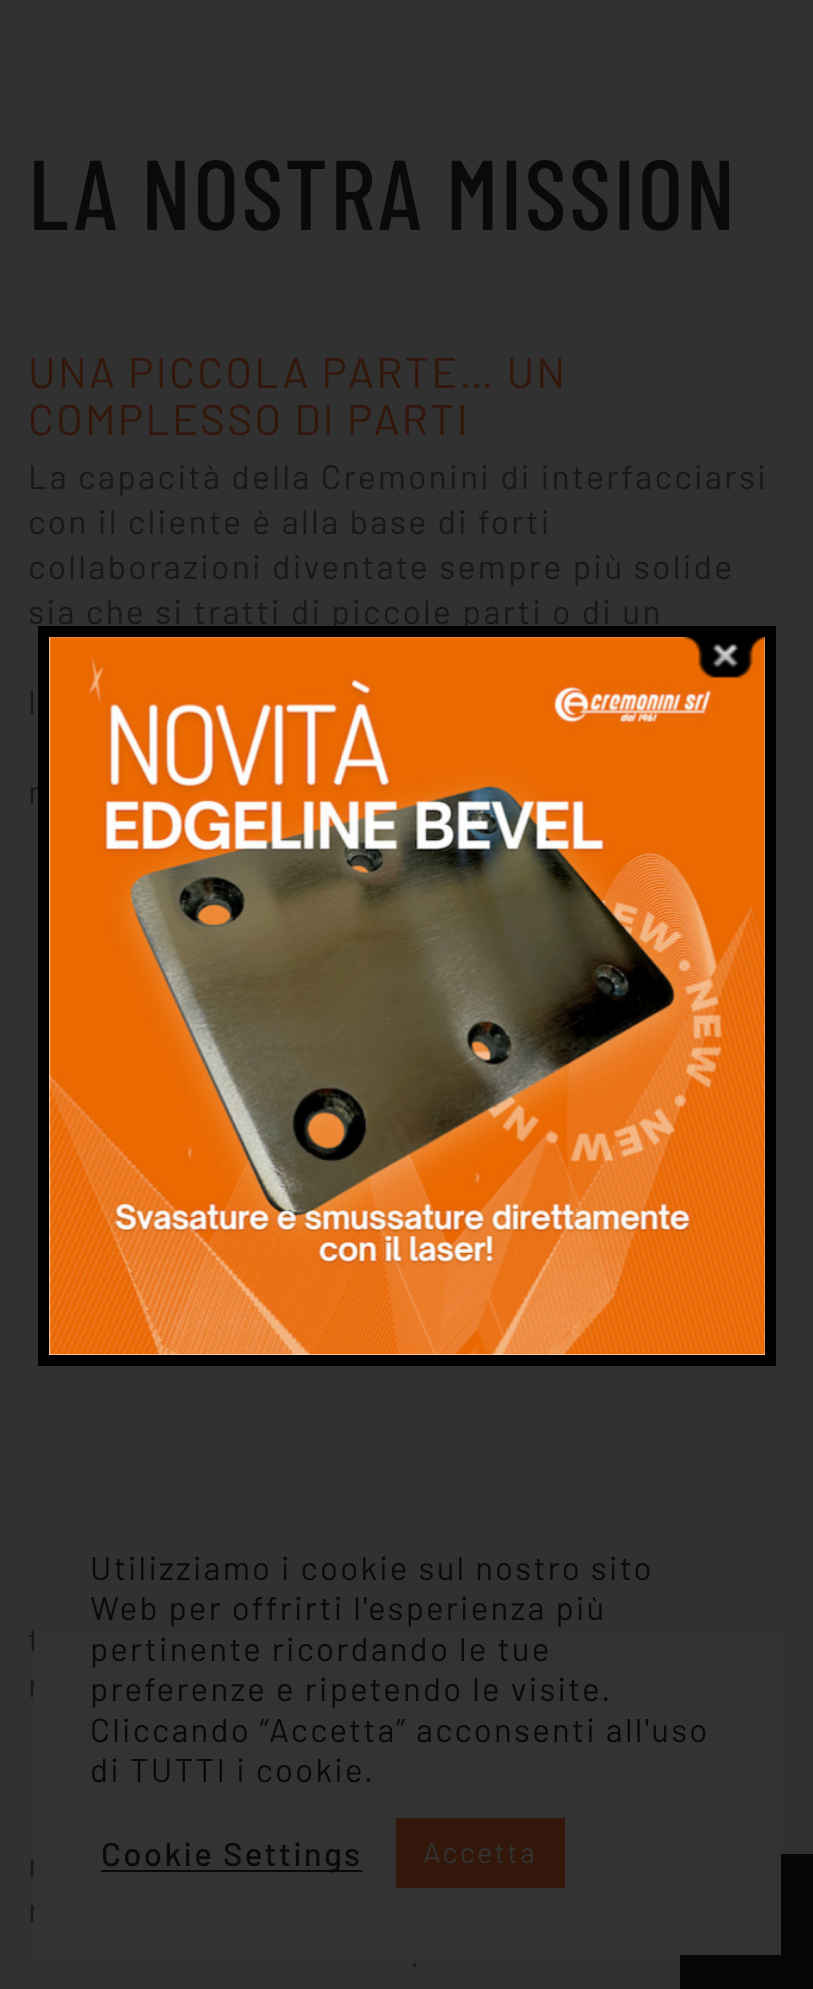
<?xml version="1.0" encoding="UTF-8"?>
<svg xmlns="http://www.w3.org/2000/svg" width="813" height="1989">
    <rect width="100%" height="100%" fill="#313131"/>
    <text x="28" y="230" font-family="Barlow Condensed" font-size="99" font-weight="500" letter-spacing="2.25" fill="#0B0A0A">LA NOSTRA MISSION</text>
    <text font-family="Barlow" font-size="42.75" letter-spacing="2.25" fill="#32170A">
        <tspan x="28" y="388">UNA PICCOLA PARTE… UN</tspan>
        <tspan x="28" y="435">COMPLESSO DI PARTI</tspan>
    </text>
    <text font-family="Barlow" font-size="33.75" letter-spacing="2.25" fill="#191818">
        <tspan x="28" y="489">La capacità della Cremonini di interfacciarsi</tspan>
        <tspan x="28" y="534">con il cliente è alla base di forti</tspan>
        <tspan x="28" y="579">collaborazioni diventate sempre più solide</tspan>
        <tspan x="28" y="624">sia che si tratti di piccole parti o di un</tspan>
    </text>
    <text x="28" y="714" font-family="Barlow" font-size="33.75" letter-spacing="2.25" fill="#191818">l</text>
    <text x="28" y="804" font-family="Barlow" font-size="33.75" letter-spacing="2.25" fill="#191818">r</text>
    <text font-family="Barlow" font-size="33.75" letter-spacing="2.25" fill="#191818">
        <tspan x="28" y="1652">t</tspan>
        <tspan x="28" y="1697">r</tspan>
    </text>
    <text font-family="Barlow" font-size="33.75" letter-spacing="2.25" fill="#191818">
        <tspan x="28" y="1877">r</tspan>
        <tspan x="28" y="1922">r</tspan>
    </text>
    <text x="410" y="1967" font-family="Barlow" font-size="33.75" letter-spacing="2.25" fill="#191818">.</text>
    <rect x="680" y="1854" width="133" height="135" fill="#060606"/>
    <rect x="49" y="637" width="716" height="718" fill="#FFFFFF"/>
    <image x="49" y="637" width="716" height="718" href="img_01.png"/>
    <rect x="43.5" y="631.5" width="727" height="729" fill="none" stroke="#000000" stroke-width="11"/>
    <image x="683" y="637" width="82" height="41" href="img_02.png"/>
    <rect x="34" y="1631" width="747" height="324" fill="#333333"/>
    <text font-family="Barlow" font-size="33" letter-spacing="2.25" fill="#0B0A0A">
        <tspan x="90" y="1580">Utilizziamo i cookie sul nostro sito</tspan>
        <tspan x="90" y="1620">Web per offrirti l'esperienza più</tspan>
        <tspan x="90" y="1661">pertinente ricordando le tue</tspan>
        <tspan x="90" y="1701">preferenze e ripetendo le visite.</tspan>
        <tspan x="90" y="1742">Cliccando “Accetta” acconsenti all'uso</tspan>
        <tspan x="90" y="1782">di TUTTI i cookie.</tspan>
    </text>
    <rect x="101" y="1870" width="261" height="2" fill="#0A0A0A"/>
    <text x="101" y="1866" font-family="Barlow" font-size="33" font-weight="500" letter-spacing="2.25" fill="#0B0A0A">Cookie Settings</text>
    <rect x="396" y="1818" width="169" height="70" fill="#32170A"/>
    <text x="423" y="1863" font-family="Barlow" font-size="29" letter-spacing="2.25" fill="#333333">Accetta</text>
</svg>
